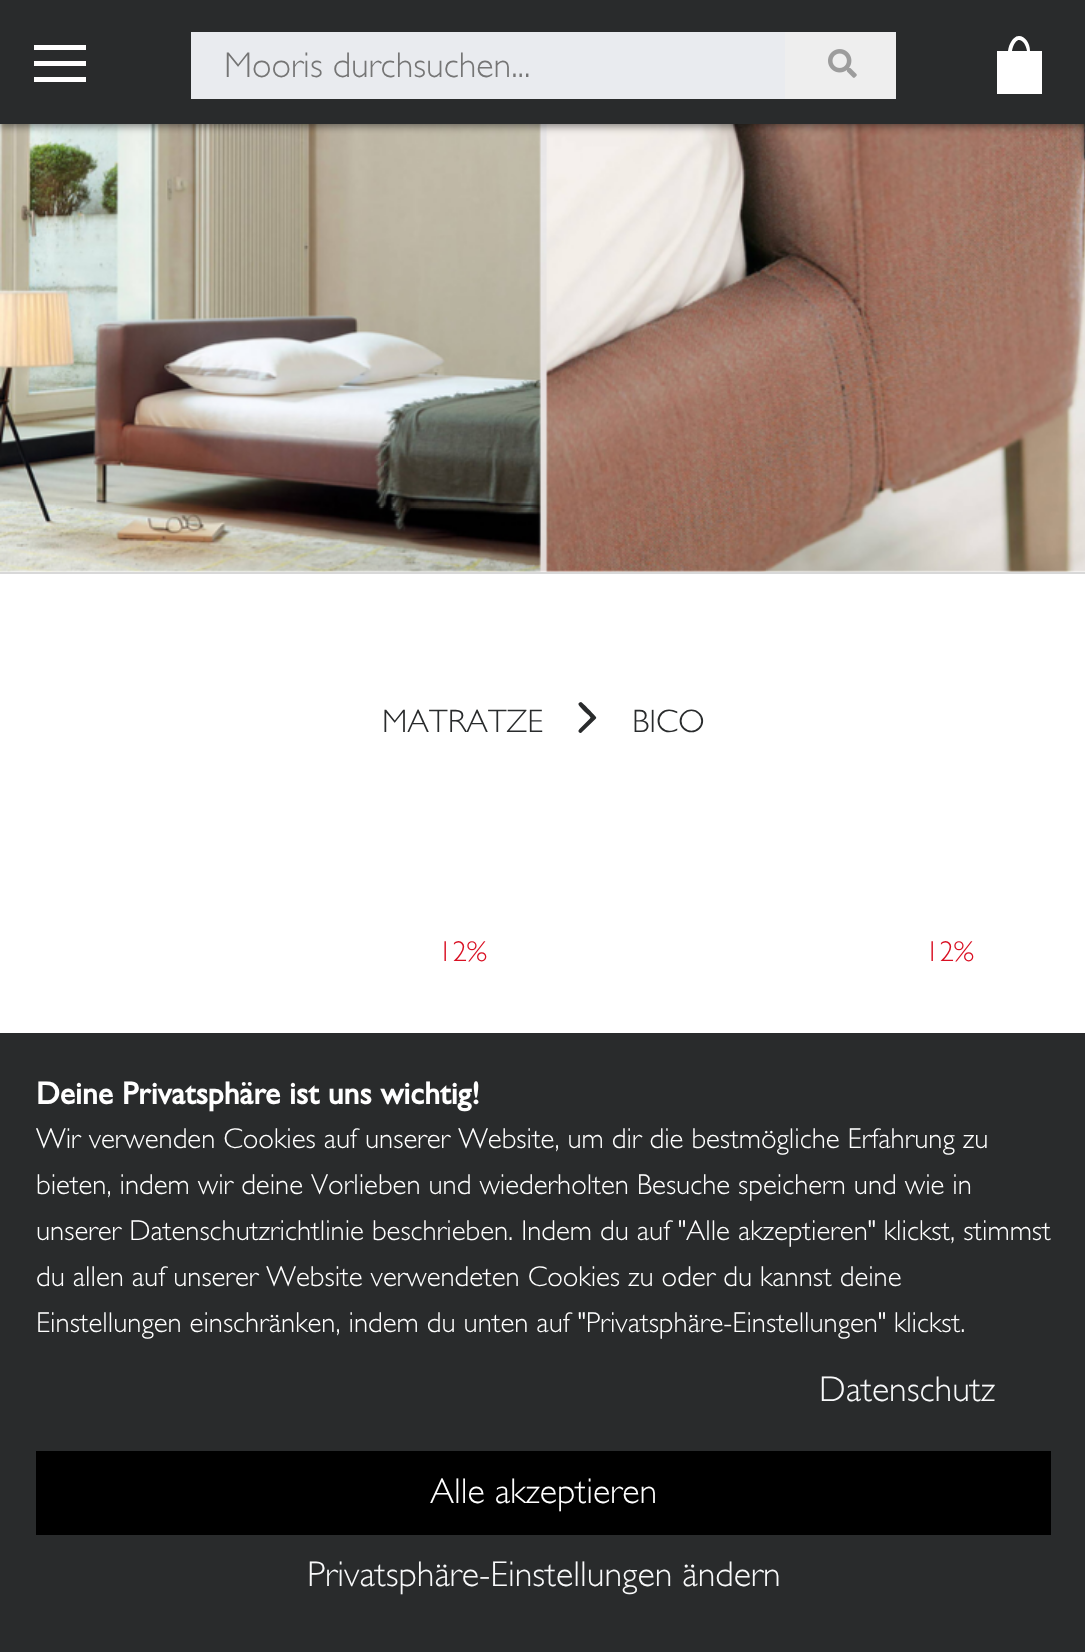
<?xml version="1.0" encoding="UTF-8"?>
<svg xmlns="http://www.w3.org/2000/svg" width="1085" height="1652">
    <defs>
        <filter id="blur1" x="-50%" y="-200%" width="200%" height="500%"><feGaussianBlur stdDeviation="4.5"/></filter>
    </defs>
    <rect width="100%" height="100%" fill="#FFFFFF"/>
    <image x="0" y="124" width="1085" height="448" href="img_02.png"/>
    <rect x="0" y="2" width="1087" height="124" fill="#000000" fill-opacity="0.5" filter="url(#blur1)"/>
    <rect x="0" y="0" width="1085" height="124" fill="#292B2C"/>
    <rect x="34" y="61" width="52" height="5" fill="#FFFFFF"/>
    <rect x="34" y="45" width="52" height="5" fill="#FFFFFF"/>
    <rect x="34" y="77" width="52" height="5" fill="#FFFFFF"/>
    <rect x="191" y="32" width="705" height="67" fill="#E9EBEF"/>
    <text x="224" y="77" font-family="Gill Sans" font-size="36" font-weight="300" fill="#757575">Mooris durchsuchen...</text>
    <path d="M 785 32 H 891 C 894 32 896 34 896 37 V 94 C 896 97 894 99 891 99 H 785 Z" fill="#EEEEEE"/>
    <image x="828" y="49" width="29" height="29" href="img_01.png"/>
    <path d="M 1019 36 C 1025 36 1030 43 1030 51 H 1042 V 94 H 997 V 51 H 1008 C 1009 43 1014 36 1019 36 Z M 1019 40 C 1016 40 1013 45 1012 51 H 1027 C 1026 45 1023 40 1019 40 Z" fill="#FFFFFF"/>
    <rect x="0" y="572" width="1085" height="2" fill="#D8D8D8"/>
    <text x="382" y="732" font-family="Gill Sans" font-size="32.5" font-weight="300" fill="#292B2C">MATRATZE</text>
    <path d="M 578.5 703.5 V 704.5 C 578.5 706 586.5 713.5 588.5 715 L 590.5 717.5 L 590 718.5 L 579.5 729 L 578.5 730.5 C 578 732 580 733.5 581 733 L 595.5 719 C 596 718.5 596.5 718 596 717 C 596 716.5 582.5 702.5 581 702 C 580 702 579 703 578.5 703.5 Z" fill="#292B2C" fill-rule="evenodd"/>
    <text x="632" y="732" font-family="Gill Sans" font-size="32.5" font-weight="300" fill="#292B2C">BICO</text>
    <text x="438" y="961" font-family="Gill Sans" font-size="28.8" font-weight="300" fill="#D91023">12%</text>
    <text x="925" y="961" font-family="Gill Sans" font-size="28.8" font-weight="300" fill="#D91023">12%</text>
    <rect x="0" y="1033" width="1085" height="619" fill="#292B2C"/>
    <text x="36" y="1104" font-family="Gill Sans" font-size="31.75" font-weight="700" fill="#FFFFFF">Deine Privatsphäre ist uns wichtig!</text>
    <text font-family="Gill Sans" font-size="28.8" font-weight="300" fill="#FFFFFF">
        <tspan x="36" y="1148">Wir verwenden Cookies auf unserer Website, um dir die bestmögliche Erfahrung zu</tspan>
        <tspan x="36" y="1194">bieten, indem wir deine Vorlieben und wiederholten Besuche speichern und wie in</tspan>
        <tspan x="36" y="1240">unserer Datenschutzrichtlinie beschrieben. Indem du auf "Alle akzeptieren" klickst, stimmst</tspan>
        <tspan x="36" y="1286">du allen auf unserer Website verwendeten Cookies zu oder du kannst deine</tspan>
        <tspan x="36" y="1332">Einstellungen einschränken, indem du unten auf "Privatsphäre-Einstellungen" klickst.</tspan>
    </text>
    <text x="819" y="1401" font-family="Gill Sans" font-size="36" font-weight="300" fill="#F8F9FA">Datenschutz</text>
    <rect x="36" y="1451" width="1015" height="84" fill="#000000"/>
    <text x="430" y="1503" font-family="Gill Sans" font-size="36" font-weight="300" fill="#FFFFFF">Alle akzeptieren</text>
    <text x="307" y="1586" font-family="Gill Sans" font-size="36" font-weight="300" fill="#F8F9FA">Privatsphäre-Einstellungen ändern</text>
</svg>
